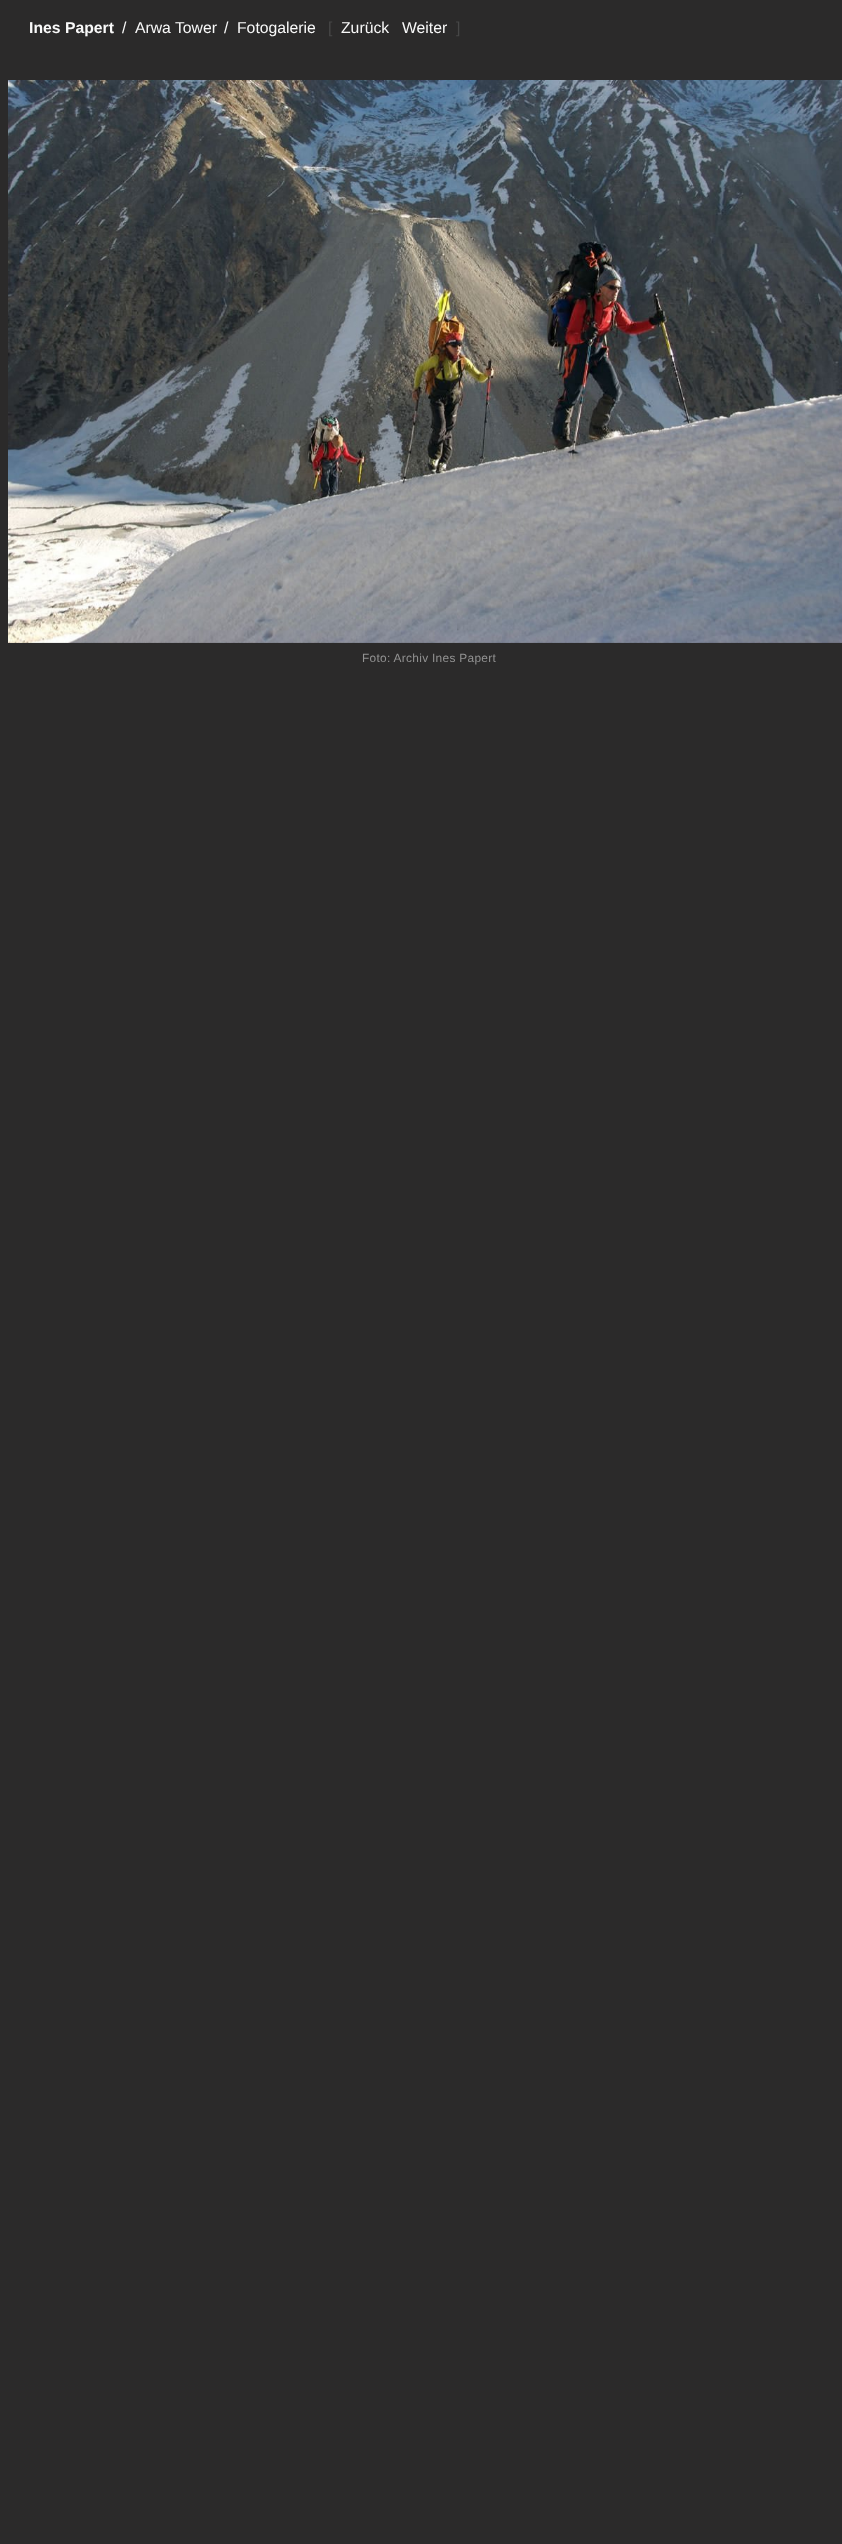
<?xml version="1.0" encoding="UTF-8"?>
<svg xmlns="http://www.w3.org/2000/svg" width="842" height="2544">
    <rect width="100%" height="100%" fill="#2B2A2A"/>
    <text x="29" y="33" font-family="Liberation Sans" font-size="15.75" font-weight="700" fill="#F9F9F9">Ines Papert</text>
    <text x="122" y="33" font-family="Liberation Sans" font-size="15.75" fill="#F9F9F9">/</text>
    <text x="135" y="33" font-family="Liberation Sans" font-size="15.75" fill="#F9F9F9">Arwa Tower</text>
    <text x="224" y="33" font-family="Liberation Sans" font-size="15.75" fill="#F9F9F9">/</text>
    <text x="237" y="33" font-family="Liberation Sans" font-size="15.75" fill="#F9F9F9">Fotogalerie</text>
    <text x="328" y="33" font-family="Liberation Sans" font-size="15.75" fill="#474747">[</text>
    <text x="341" y="33" font-family="Liberation Sans" font-size="15.75" fill="#F9F9F9">Zurück</text>
    <text x="402" y="33" font-family="Liberation Sans" font-size="15.75" fill="#F9F9F9">Weiter</text>
    <text x="456" y="33" font-family="Liberation Sans" font-size="15.75" fill="#474747">]</text>
    <image x="8" y="80" width="834" height="563" href="img_01.png"/>
    <text x="362" y="662" font-family="Liberation Sans" font-size="11.9" letter-spacing="0.3" fill="#929292">Foto: Archiv Ines Papert</text>
</svg>
